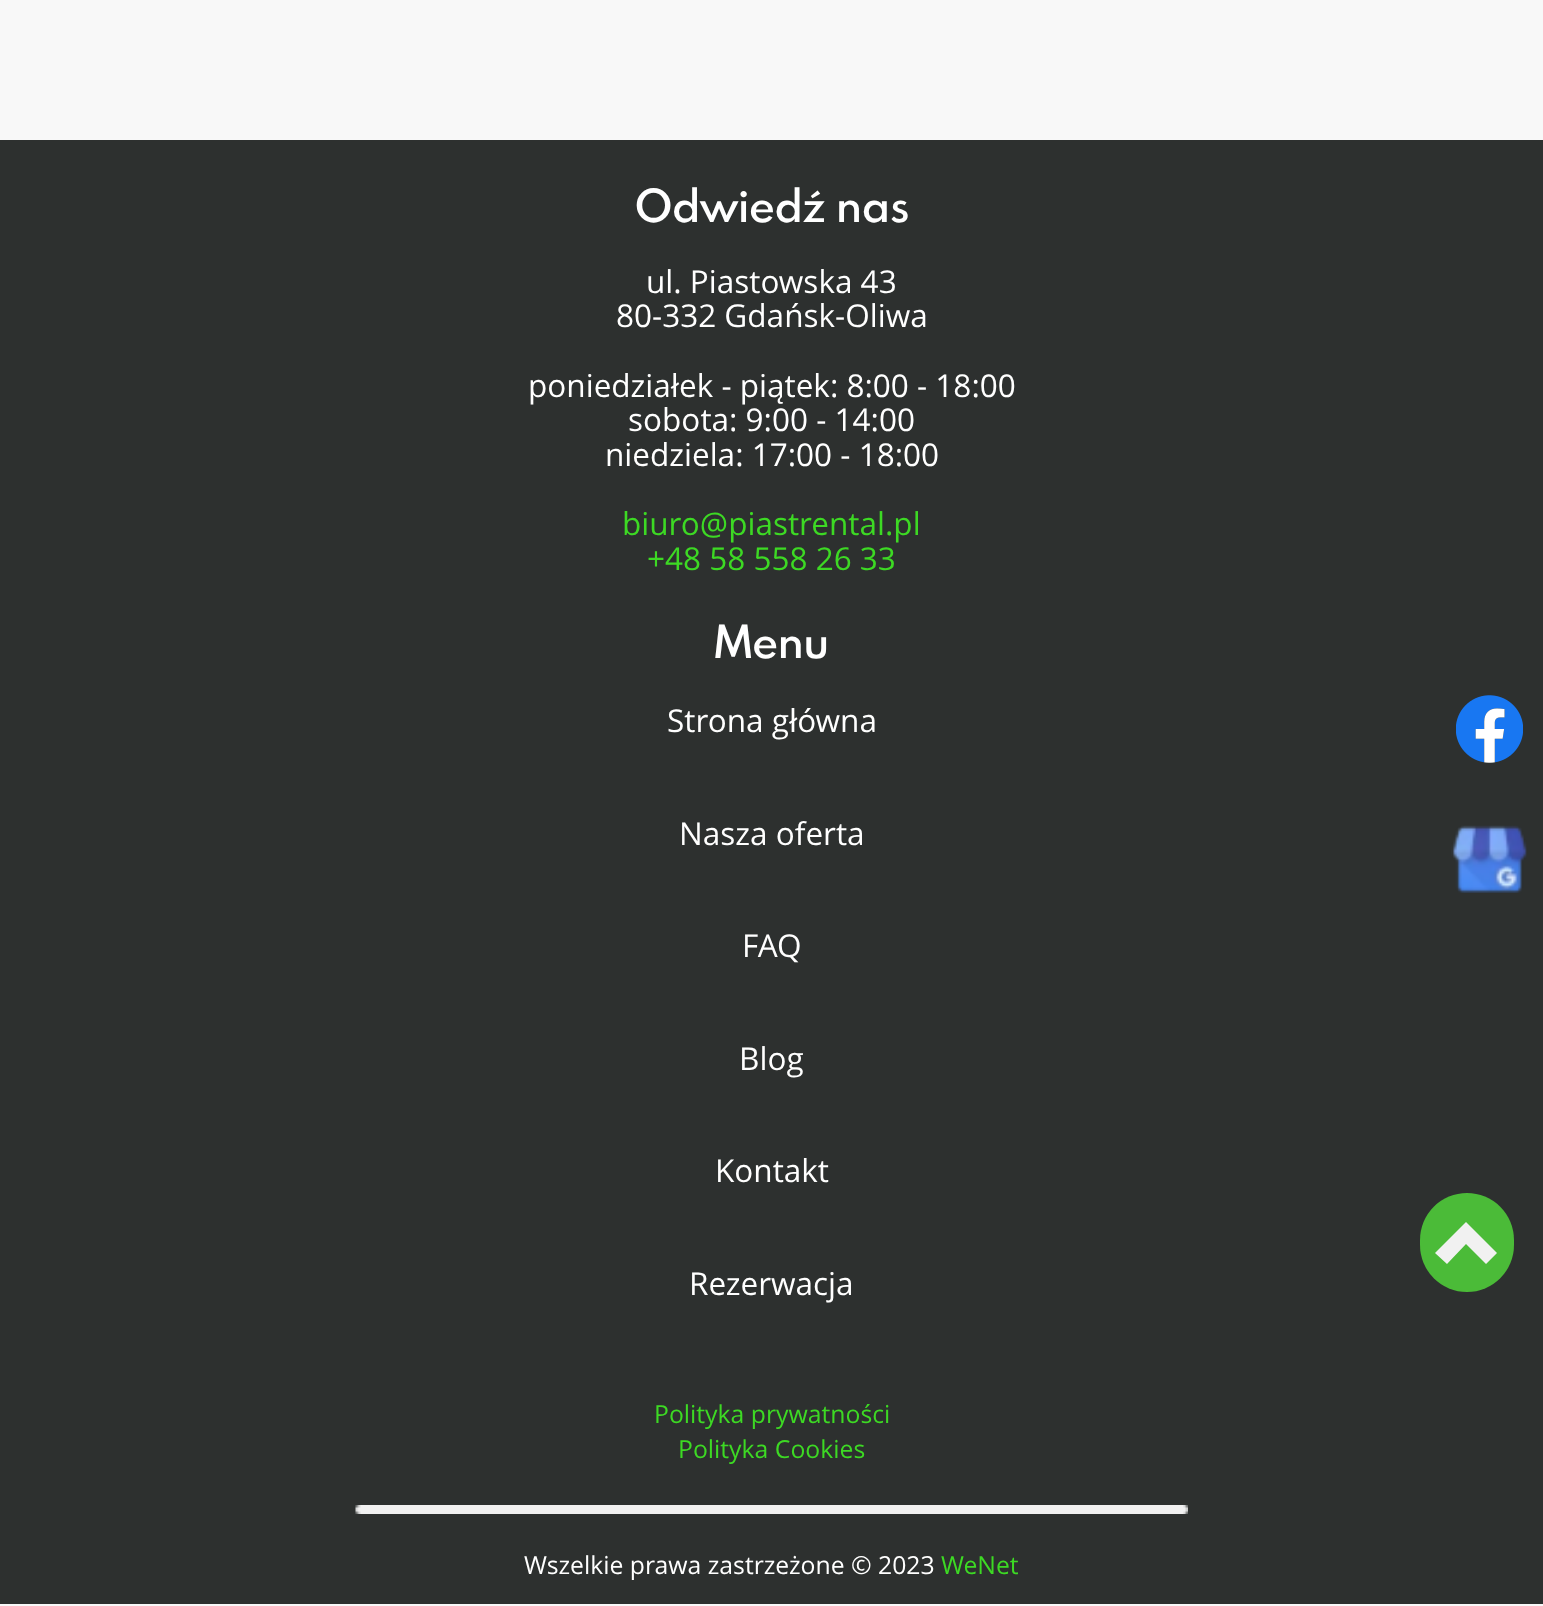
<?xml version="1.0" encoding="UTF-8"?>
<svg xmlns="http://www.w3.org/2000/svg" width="1543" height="1606">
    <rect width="100%" height="100%" fill="#F8F8F8"/>
    <rect x="0" y="140" width="1543" height="1464" fill="#2D302F"/>
    <text x="635" y="222" font-family="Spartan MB" font-size="40.5" font-weight="600" fill="#FFFFFF">Odwiedź nas</text>
    <text x="646" y="293" font-family="Open Sans" font-size="31.5" fill="#FFFFFF">ul. Piastowska 43</text>
    <text x="616" y="327" font-family="Open Sans" font-size="31.5" fill="#FFFFFF">80-332 Gdańsk-Oliwa</text>
    <text x="528" y="397" font-family="Open Sans" font-size="31.5" fill="#FFFFFF">poniedziałek - piątek: 8:00 - 18:00</text>
    <text x="628" y="431" font-family="Open Sans" font-size="31.5" fill="#FFFFFF">sobota: 9:00 - 14:00</text>
    <text x="605" y="466" font-family="Open Sans" font-size="31.5" fill="#FFFFFF">niedziela: 17:00 - 18:00</text>
    <text x="622" y="535" font-family="Open Sans" font-size="31.5" fill="#3DD924">biuro@piastrental.pl</text>
    <text x="647" y="570" font-family="Open Sans" font-size="31.5" fill="#3DD924">+48 58 558 26 33</text>
    <text x="714" y="658" font-family="Spartan MB" font-size="40.5" font-weight="600" fill="#FFFFFF">Menu</text>
    <text x="667" y="732" font-family="Open Sans" font-size="31.5" fill="#FFFFFF">Strona główna</text>
    <text x="679" y="845" font-family="Open Sans" font-size="31.5" fill="#FFFFFF">Nasza oferta</text>
    <text x="742" y="957" font-family="Open Sans" font-size="31.5" fill="#FFFFFF">FAQ</text>
    <text x="739" y="1070" font-family="Open Sans" font-size="31.5" fill="#FFFFFF">Blog</text>
    <text x="715" y="1182" font-family="Open Sans" font-size="31.5" fill="#FFFFFF">Kontakt</text>
    <text x="689" y="1295" font-family="Open Sans" font-size="31.5" fill="#FFFFFF">Rezerwacja</text>
    <text x="654" y="1423" font-family="Open Sans" font-size="24.75" fill="#3DD924">Polityka prywatności</text>
    <text x="678" y="1458" font-family="Open Sans" font-size="24.75" fill="#3DD924">Polityka Cookies</text>
    <image x="355" y="1505" width="833" height="9" href="img_01.png"/>
    <text x="524" y="1574" font-family="Open Sans" font-size="24.75" fill="#FFFFFF">Wszelkie prawa zastrzeżone © 2023</text>
    <text x="941" y="1574" font-family="Open Sans" font-size="24.75" fill="#3DD924">WeNet</text>
    <image x="1456" y="695" width="67" height="68" href="img_02.png"/>
    <image x="1451" y="825" width="76" height="68" href="img_03.png"/>
    <rect x="1420" y="1193" width="94" height="99" rx="47" fill="#4BBB38"/>
    <path d="M 1497 1253 L 1486 1264 L 1466 1244 L 1447 1264 L 1435 1253 L 1466 1222 Z" fill="#F1F1F1"/>
</svg>
